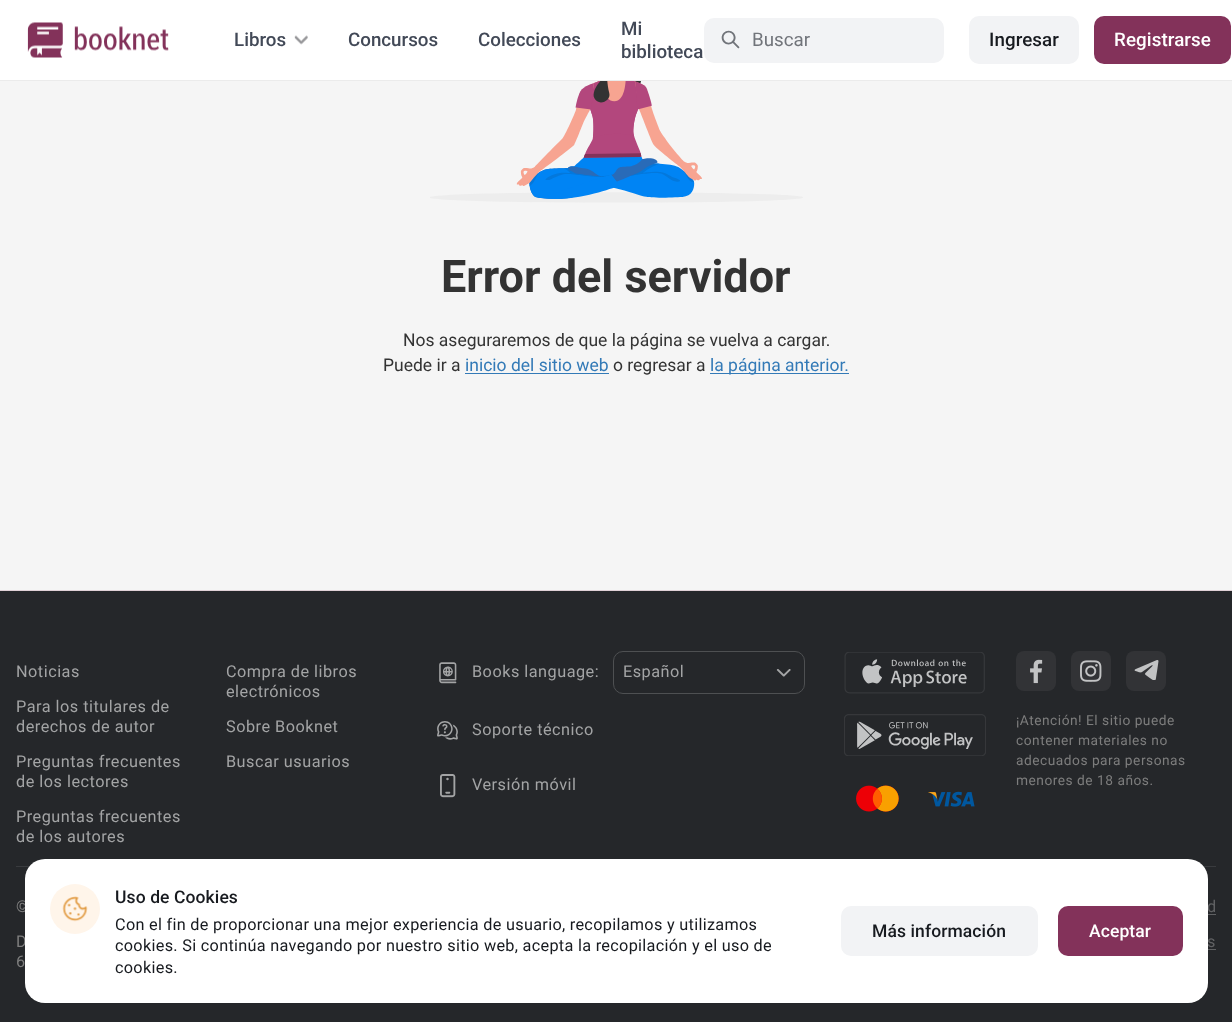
<?xml version="1.0" encoding="UTF-8"?>
<svg xmlns="http://www.w3.org/2000/svg" width="1232" height="1022">
    <rect width="100%" height="100%" fill="#F5F5F5"/>
    <rect x="0" y="0" width="1232" height="80" fill="#FFFFFF"/>
    <rect x="0" y="80" width="1232" height="1" fill="#EBEBEB"/>
    <image x="27" y="22" width="142" height="36" href="img_01.png"/>
    <text x="234" y="46" font-family="Roboto" font-size="18.75" font-weight="500" fill="#424957">Libros</text>
    <image x="294" y="35" width="14" height="10" href="img_02.png"/>
    <text x="348" y="46" font-family="Roboto" font-size="18.75" font-weight="500" fill="#424957">Concursos</text>
    <text x="478" y="46" font-family="Roboto" font-size="18.75" font-weight="500" fill="#424957">Colecciones</text>
    <text font-family="Roboto" font-size="18.75" font-weight="500" fill="#424957">
        <tspan x="621" y="35">Mi</tspan>
        <tspan x="621" y="58">biblioteca</tspan>
    </text>
    <rect x="704" y="18" width="240" height="45" rx="10" fill="#F2F3F5"/>
    <image x="721" y="30" width="19" height="19" href="img_03.png"/>
    <text x="752" y="46" font-family="Roboto" font-size="18.75" fill="#71747A">Buscar</text>
    <rect x="969" y="16" width="110" height="48" rx="10" fill="#F2F3F5"/>
    <text x="989" y="46" font-family="Roboto" font-size="18.75" font-weight="500" letter-spacing="0.1" fill="#171A1F">Ingresar</text>
    <rect x="1094" y="16" width="137" height="48" rx="10" fill="#83325A"/>
    <text x="1114" y="46" font-family="Roboto" font-size="18.75" font-weight="500" letter-spacing="0.1" fill="#FFFFFF">Registrarse</text>
    <image x="430" y="81" width="373" height="122" href="img_04.png"/>
    <text x="441" y="292" font-family="Roboto" font-size="45" font-weight="700" fill="#333333">Error del servidor</text>
    <text x="403" y="346" font-family="Roboto" font-size="17.5" fill="#333333">Nos aseguraremos de que la página se vuelva a cargar.</text>
    <text x="383" y="371" font-family="Roboto" font-size="17.5" fill="#333333">Puede ir a</text>
    <text x="465" y="371" font-family="Roboto" font-size="17.5" fill="#337AB7">inicio del sitio web</text>
    <rect x="465" y="373" width="144" height="1" fill="#337AB7"/>
    <text x="613" y="371" font-family="Roboto" font-size="17.5" fill="#333333">o regresar a</text>
    <rect x="710" y="373" width="139" height="1" fill="#337AB7"/>
    <text x="710" y="371" font-family="Roboto" font-size="17.5" fill="#337AB7">la página anterior.</text>
    <rect x="0" y="591" width="1232" height="431" fill="#25272A"/>
    <rect x="0" y="590" width="1232" height="1" fill="#E0D1D6"/>
    <rect x="16" y="866" width="1200" height="1" fill="#393B3E"/>
    <text x="16" y="677" font-family="Roboto" font-size="16.25" letter-spacing="0.5" fill="#A3A4A5">Noticias</text>
    <text font-family="Roboto" font-size="16.25" letter-spacing="0.5" fill="#A3A4A5">
        <tspan x="16" y="712">Para los titulares de</tspan>
        <tspan x="16" y="732">derechos de autor</tspan>
    </text>
    <text font-family="Roboto" font-size="16.25" letter-spacing="0.5" fill="#A3A4A5">
        <tspan x="16" y="767">Preguntas frecuentes</tspan>
        <tspan x="16" y="787">de los lectores</tspan>
    </text>
    <text font-family="Roboto" font-size="16.25" letter-spacing="0.5" fill="#A3A4A5">
        <tspan x="16" y="822">Preguntas frecuentes</tspan>
        <tspan x="16" y="842">de los autores</tspan>
    </text>
    <text font-family="Roboto" font-size="16.25" letter-spacing="0.5" fill="#A3A4A5">
        <tspan x="226" y="677">Compra de libros</tspan>
        <tspan x="226" y="697">electrónicos</tspan>
    </text>
    <text x="226" y="732" font-family="Roboto" font-size="16.25" letter-spacing="0.5" fill="#A3A4A5">Sobre Booknet</text>
    <text x="226" y="767" font-family="Roboto" font-size="16.25" letter-spacing="0.5" fill="#A3A4A5">Buscar usuarios</text>
    <image x="439" y="662" width="18" height="22" href="img_05.png"/>
    <text x="472" y="677" font-family="Roboto" font-size="16.25" letter-spacing="0.5" fill="#A3A4A5">Books language:</text>
    <rect x="613.5" y="651.5" width="191" height="42" rx="9.5" fill="none" stroke="#4E5052"/>
    <text x="623" y="677" font-family="Roboto" font-size="16.25" letter-spacing="0.5" fill="#A3A4A5">Español</text>
    <image x="776" y="669" width="15" height="8" href="img_06.png"/>
    <image x="437" y="721" width="21" height="19" href="img_07.png"/>
    <text x="472" y="735" font-family="Roboto" font-size="16.25" letter-spacing="0.5" fill="#A3A4A5">Soporte técnico</text>
    <image x="440" y="774" width="16" height="24" href="img_08.png"/>
    <text x="472" y="790" font-family="Roboto" font-size="16.25" letter-spacing="0.5" fill="#A3A4A5">Versión móvil</text>
    <image x="844" y="652" width="141" height="42" href="img_09.png"/>
    <image x="844" y="714" width="142" height="42" href="img_10.png"/>
    <image x="856" y="785" width="43" height="27" href="img_11.png"/>
    <image x="928" y="791" width="47" height="16" href="img_12.png"/>
    <rect x="1016" y="651" width="40" height="40" rx="8" fill="#323336"/>
    <image x="1030" y="659" width="13" height="25" href="img_13.png"/>
    <rect x="1071" y="651" width="40" height="40" rx="8" fill="#323336"/>
    <image x="1080" y="660" width="22" height="22" href="img_14.png"/>
    <rect x="1126" y="651" width="40" height="40" rx="8" fill="#323336"/>
    <image x="1134" y="660" width="25" height="20" href="img_15.png"/>
    <text font-family="Roboto" font-size="13.75" letter-spacing="0.5" fill="#7D7D7D">
        <tspan x="1016" y="725">¡Atención! El sitio puede</tspan>
        <tspan x="1016" y="745">contener materiales no</tspan>
        <tspan x="1016" y="765">adecuados para personas</tspan>
        <tspan x="1016" y="785">menores de 18 años.</tspan>
    </text>
    <text x="16" y="912" font-family="Roboto" font-size="16.25" letter-spacing="0.5" fill="#7D7D7D">©</text>
    <text font-family="Roboto" font-size="16.25" letter-spacing="0.5" fill="#7D7D7D">
        <tspan x="16" y="947">D</tspan>
        <tspan x="16" y="967">6</tspan>
    </text>
    <text x="1207" y="912" font-family="Roboto" font-size="16.25" letter-spacing="0.5" fill="#606163">d</text>
    <rect x="1208" y="914" width="8" height="1" fill="#606163"/>
    <text x="1207" y="947" font-family="Roboto" font-size="16.25" letter-spacing="0.5" fill="#606163">s</text>
    <rect x="1208" y="949" width="8" height="1" fill="#606163"/>
    <rect x="25" y="859" width="1183" height="144" rx="20" fill="#FFFFFF"/>
    <circle cx="75" cy="909" r="25" fill="#FFF5EA"/>
    <image x="62" y="896" width="26" height="26" href="img_16.png"/>
    <text x="115" y="903" font-family="Roboto" font-size="17.5" font-weight="500" letter-spacing="0.1" fill="#171A1F">Uso de Cookies</text>
    <text font-family="Roboto" font-size="16.25" letter-spacing="0.3" fill="#171A1F">
        <tspan x="115" y="930">Con el fin de proporcionar una mejor experiencia de usuario, recopilamos y utilizamos</tspan>
        <tspan x="115" y="951">cookies. Si continúa navegando por nuestro sitio web, acepta la recopilación y el uso de</tspan>
        <tspan x="115" y="973">cookies.</tspan>
    </text>
    <rect x="841" y="906" width="197" height="50" rx="10" fill="#F2F3F5"/>
    <text x="872" y="937" font-family="Roboto" font-size="17.5" font-weight="500" letter-spacing="0.1" fill="#171A1F">Más información</text>
    <rect x="1058" y="906" width="125" height="50" rx="10" fill="#83325A"/>
    <text x="1089" y="937" font-family="Roboto" font-size="17.5" font-weight="500" letter-spacing="0.1" fill="#FFFFFF">Aceptar</text>
</svg>
